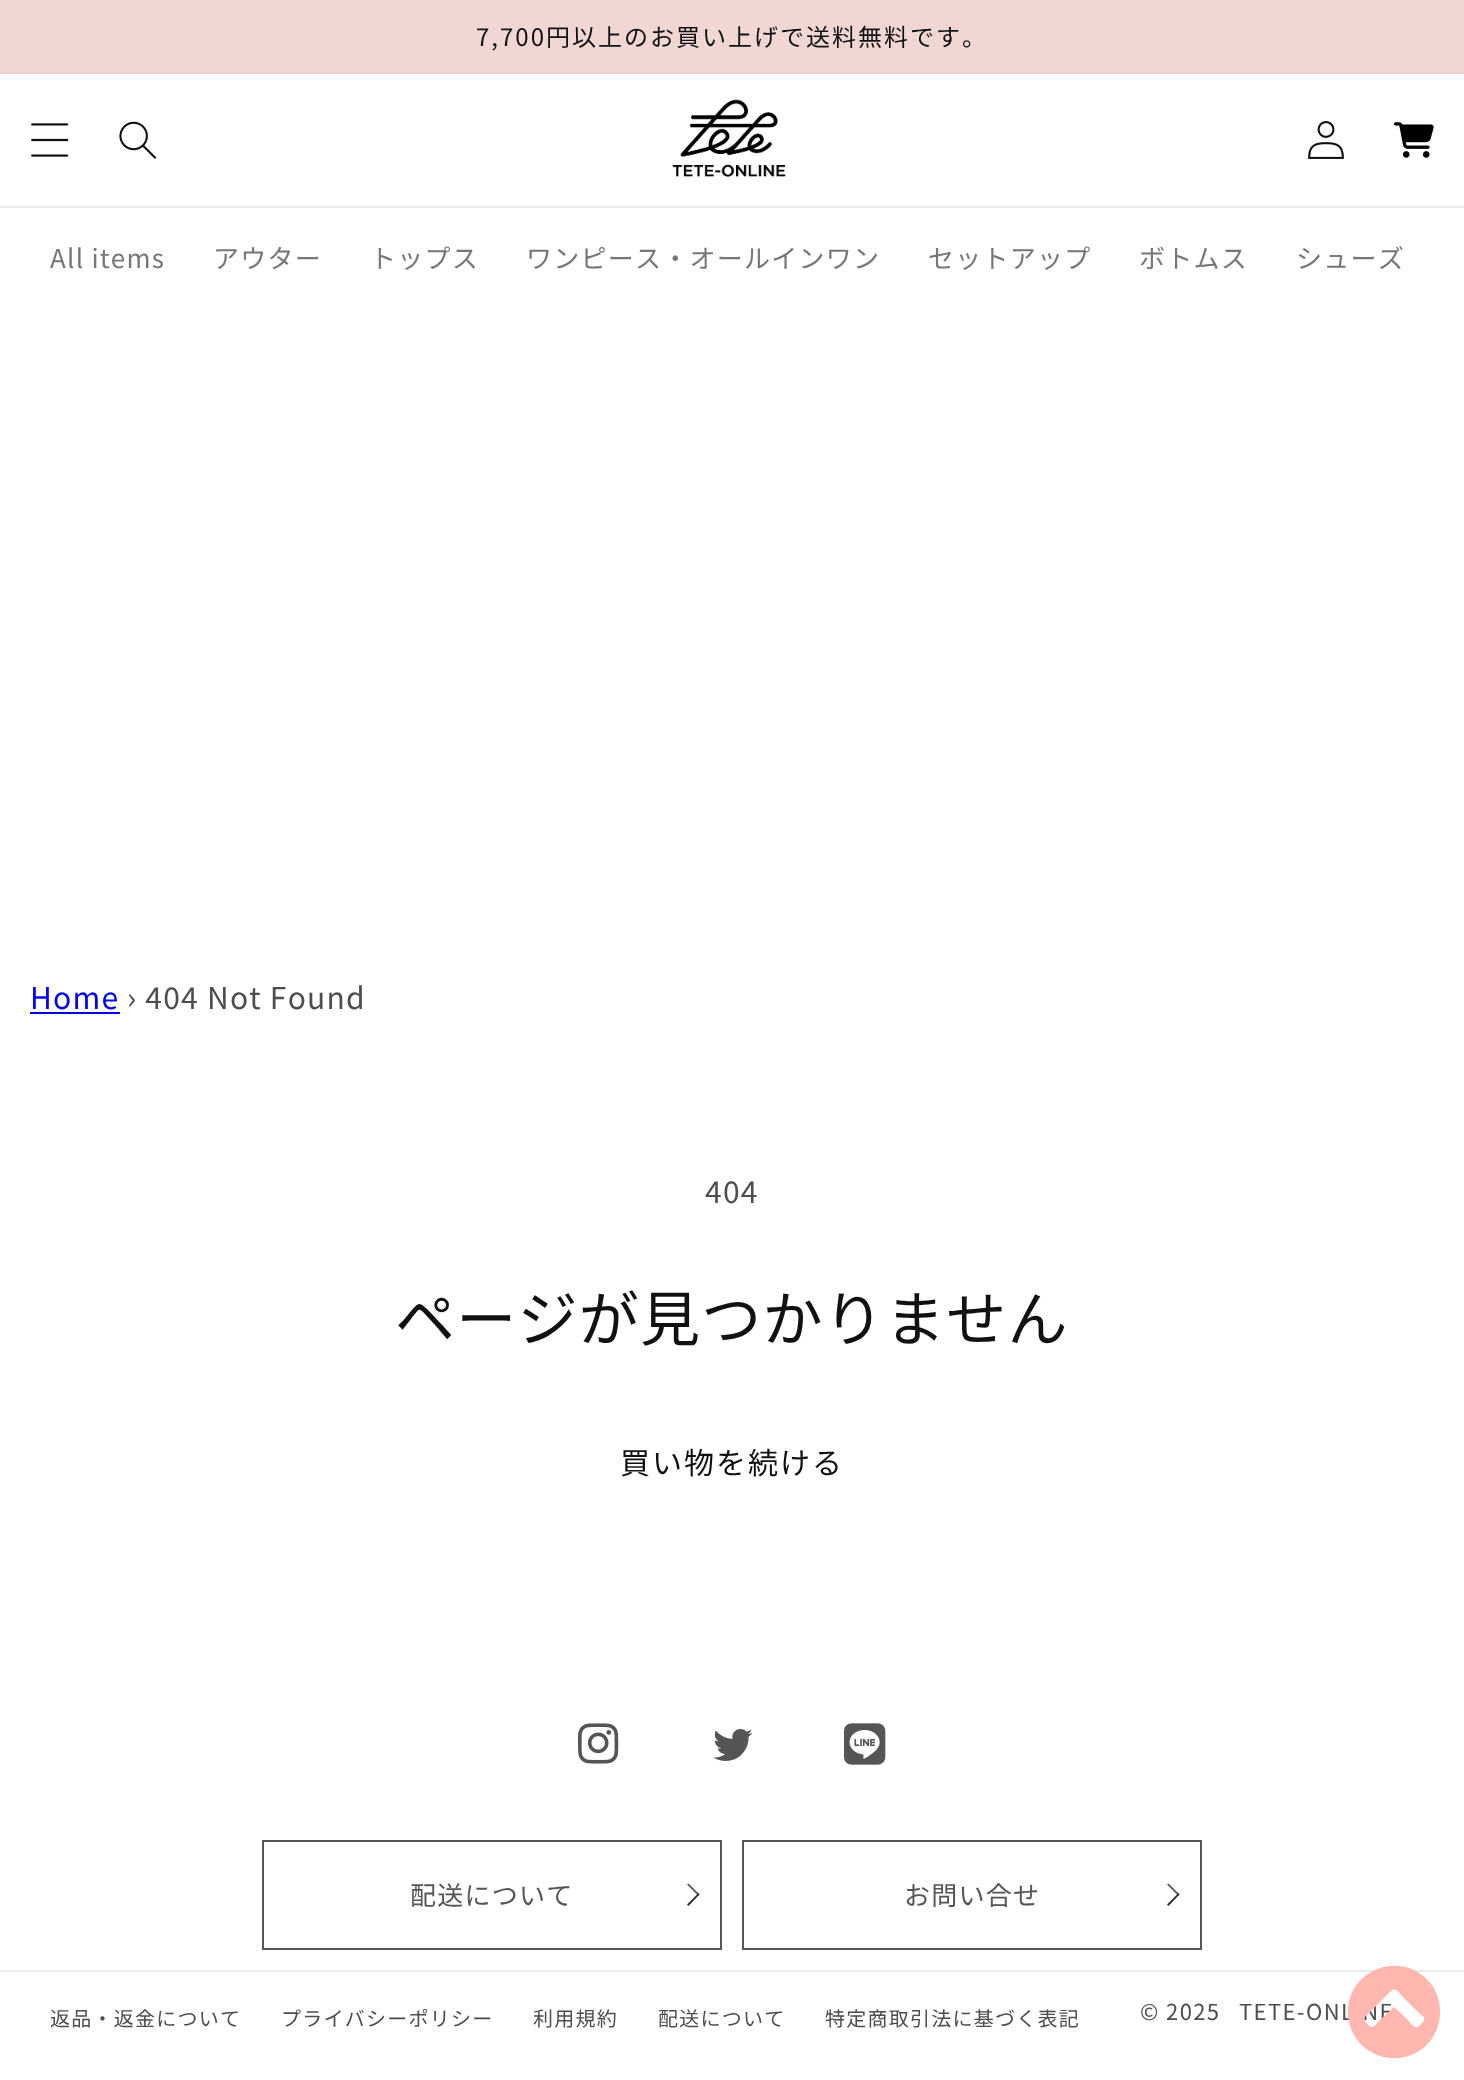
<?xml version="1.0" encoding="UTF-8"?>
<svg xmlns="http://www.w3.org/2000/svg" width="1464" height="2080">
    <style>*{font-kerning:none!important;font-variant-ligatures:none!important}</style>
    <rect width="100%" height="100%" fill="#FFFFFF"/>
    <rect x="0" y="72" width="1464" height="2" fill="#ECD3D0"/>
    <rect x="0" y="0" width="1464" height="72" fill="#F1D7D4"/>
    <text x="476" y="46" font-family="Noto Sans JP" font-size="24" letter-spacing="2" fill="#111111">7,700円以上のお買い上げで送料無料です。</text>
    <rect x="0" y="206" width="1464" height="2" fill="#ECECEC"/>
    <image x="31" y="123" width="38" height="34" href="img_01.png"/>
    <image x="119" y="121" width="37" height="38" href="img_02.png"/>
    <image x="672" y="99" width="114" height="78" href="img_03.png"/>
    <image x="1308" y="121" width="36" height="38" href="img_04.png"/>
    <image x="1394" y="122" width="40" height="36" href="img_05.png"/>
    <text x="50" y="268" font-family="Noto Sans JP" font-size="26" letter-spacing="1.25" fill="#777777">All items</text>
    <text x="213" y="268" font-family="Noto Sans JP" font-size="26" letter-spacing="1.25" fill="#777777">アウター</text>
    <text x="370" y="268" font-family="Noto Sans JP" font-size="26" letter-spacing="1.25" fill="#777777">トップス</text>
    <text x="526" y="268" font-family="Noto Sans JP" font-size="26" letter-spacing="1.25" fill="#777777">ワンピース・オールインワン</text>
    <text x="928" y="268" font-family="Noto Sans JP" font-size="26" letter-spacing="1.25" fill="#777777">セットアップ</text>
    <text x="1139" y="268" font-family="Noto Sans JP" font-size="26" letter-spacing="1.25" fill="#777777">ボトムス</text>
    <text x="1296" y="268" font-family="Noto Sans JP" font-size="26" letter-spacing="1.25" fill="#777777">シューズ</text>
    <text x="30" y="1009" font-family="Noto Sans JP" font-size="30" letter-spacing="1.25" fill="#0000EE">Home</text>
    <rect x="30" y="1012" width="90" height="2" fill="#0000EE"/>
    <text x="127" y="1009" font-family="Noto Sans JP" font-size="30" letter-spacing="1.25" fill="#4D4D4D">› 404 Not Found</text>
    <text x="705" y="1203" font-family="Noto Sans JP" font-size="30" letter-spacing="1.25" fill="#4D4D4D">404</text>
    <text x="395" y="1341" font-family="Noto Sans JP" font-size="60" letter-spacing="1.25" fill="#111111">ページが見つかりません</text>
    <text x="620" y="1474" font-family="Noto Sans JP" font-size="30" letter-spacing="2" fill="#111111">買い物を続ける</text>
    <image x="578" y="1723" width="41" height="41" href="img_06.png"/>
    <image x="713" y="1729" width="39" height="32" href="img_07.png"/>
    <image x="844" y="1723" width="42" height="42" href="img_08.png"/>
    <rect x="263" y="1841" width="458" height="108" fill="none" stroke="#555555" stroke-width="2"/>
    <text x="410" y="1905" font-family="Noto Sans JP" font-size="26" letter-spacing="1.25" fill="#555555">配送について</text>
    <path d="M 688.5 1883.5 L 699.5 1894.5 L 698.5 1896 L 687 1884.5 Z" fill="#555555"/>
    <path d="M 698.5 1893 L 699.5 1894.5 L 688.5 1906 L 687 1904.5 Z" fill="#333333"/>
    <rect x="743" y="1841" width="458" height="108" fill="none" stroke="#555555" stroke-width="2"/>
    <text x="904" y="1905" font-family="Noto Sans JP" font-size="26" letter-spacing="1.25" fill="#555555">お問い合せ</text>
    <path d="M 1168.5 1883.5 L 1179.5 1894.5 L 1178.5 1896 L 1167 1884.5 Z" fill="#555555"/>
    <path d="M 1178.5 1893 L 1179.5 1894.5 L 1168.5 1906 L 1167 1904.5 Z" fill="#333333"/>
    <rect x="0" y="1970" width="1464" height="2" fill="#ECECEC"/>
    <text x="50" y="2026" font-family="Noto Sans JP" font-size="20" letter-spacing="1.25" fill="#4D4D4D">返品・返金について</text>
    <text x="281" y="2026" font-family="Noto Sans JP" font-size="20" letter-spacing="1.25" fill="#4D4D4D">プライバシーポリシー</text>
    <text x="533" y="2026" font-family="Noto Sans JP" font-size="20" letter-spacing="1.25" fill="#4D4D4D">利用規約</text>
    <text x="658" y="2026" font-family="Noto Sans JP" font-size="20" letter-spacing="1.25" fill="#4D4D4D">配送について</text>
    <text x="825" y="2026" font-family="Noto Sans JP" font-size="20" letter-spacing="1.25" fill="#4D4D4D">特定商取引法に基づく表記</text>
    <text x="1140" y="2020" font-family="Noto Sans JP" font-size="22" letter-spacing="1.4" fill="#4D4D4D">© 2025</text>
    <text x="1239" y="2020" font-family="Noto Sans JP" font-size="22" letter-spacing="1.4" fill="#4D4D4D">TETE-ONLINE</text>
    <path d="M 1348 2012 C 1348 1968 1404 1949 1431 1984 C 1437 1992 1440 2002 1440 2012 C 1440 2022 1437 2032 1431 2040 C 1404 2075 1348 2056 1348 2012 Z M 1391 1991 L 1370 2012 C 1368 2014 1362 2018 1365 2021 L 1369 2026 C 1373 2030 1378 2022 1381 2019 L 1394 2007 L 1407 2019 C 1409 2021 1413 2028 1418 2027 L 1422 2023 C 1427 2018 1423 2016 1418 2012 L 1401 1995 C 1399 1992 1395 1987 1391 1991 Z" fill="#FFB7AF"/>
</svg>
